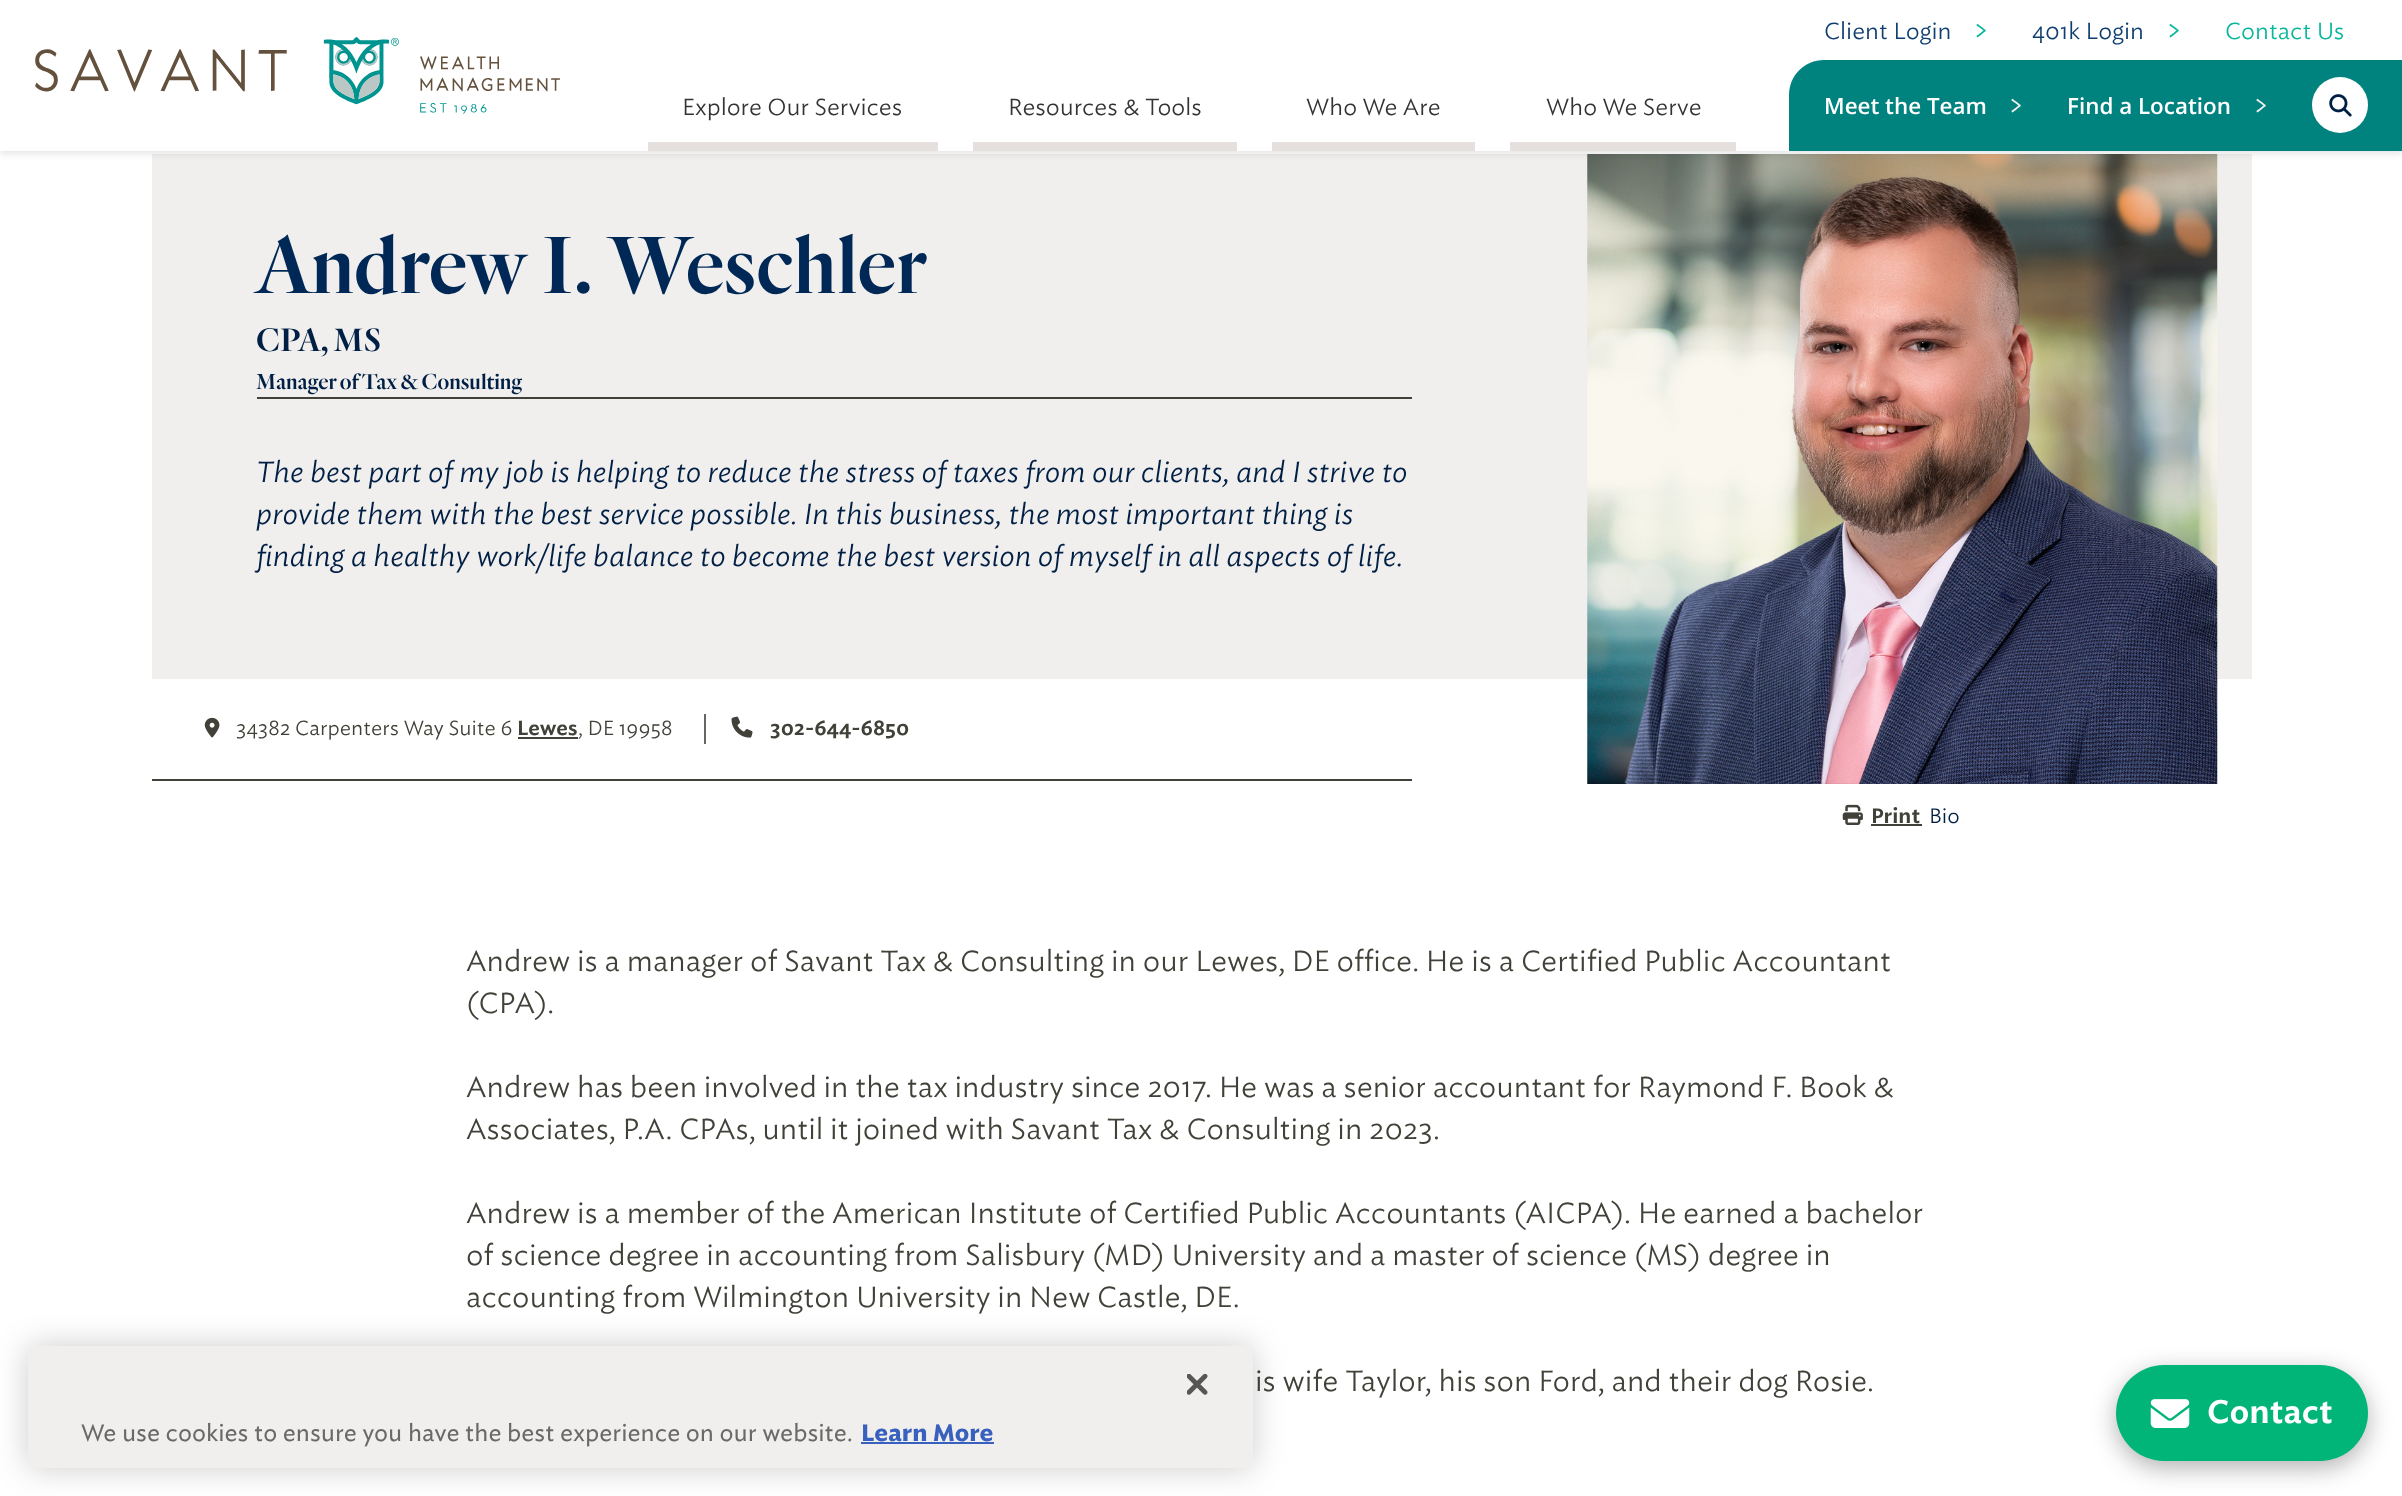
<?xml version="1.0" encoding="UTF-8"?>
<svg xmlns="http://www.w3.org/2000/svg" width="2402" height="1496">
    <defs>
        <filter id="blur1" x="-50%" y="-200%" width="200%" height="500%"><feGaussianBlur stdDeviation="3.5"/></filter>
        <filter id="blur2" x="-50%" y="-200%" width="200%" height="500%"><feGaussianBlur stdDeviation="12"/></filter>
        <filter id="blur3" x="-50%" y="-200%" width="200%" height="500%"><feGaussianBlur stdDeviation="16"/></filter>
    </defs>
    <rect width="100%" height="100%" fill="#FFFFFF"/>
    <rect x="152" y="154" width="2100" height="525" fill="#F1EFED"/>
    <image x="1587" y="154" width="631" height="630" href="img_03.png"/>
    <rect x="0" y="4" width="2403" height="150" fill="#000000" fill-opacity="0.1" filter="url(#blur1)"/>
    <rect x="0" y="0" width="2402" height="151" fill="#FFFFFF"/>
    <image x="35" y="37" width="525" height="77" href="img_01.png"/>
    <rect x="648" y="142" width="290" height="9" fill="#E5E0DD"/>
    <text x="682" y="115" font-family="'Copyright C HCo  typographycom'" font-size="22.4" font-weight="300" fill="#333333">Explore Our Services</text>
    <rect x="973" y="142" width="264" height="9" fill="#E5E0DD"/>
    <text x="1008" y="115" font-family="'Copyright C HCo  typographycom'" font-size="22.4" font-weight="300" fill="#333333">Resources &amp; Tools</text>
    <rect x="1272" y="142" width="203" height="9" fill="#E5E0DD"/>
    <text x="1306" y="115" font-family="'Copyright C HCo  typographycom'" font-size="22.4" font-weight="300" fill="#333333">Who We Are</text>
    <rect x="1510" y="142" width="226" height="9" fill="#E5E0DD"/>
    <text x="1546" y="115" font-family="'Copyright C HCo  typographycom'" font-size="22.4" font-weight="300" fill="#333333">Who We Serve</text>
    <text x="1824" y="39" font-family="'Copyright C HCo  typographycom'" font-size="22.4" font-weight="300" fill="#0F3E70">Client Login</text>
    <text x="1972" y="39" font-family="'Copyright C HCo  typographycom'" font-size="28" font-weight="300" fill="#08B79B">&gt;</text>
    <text x="2032" y="39" font-family="'Copyright C HCo  typographycom'" font-size="22.4" font-weight="300" fill="#0F3E70">401k Login</text>
    <text x="2165" y="39" font-family="'Copyright C HCo  typographycom'" font-size="28" font-weight="300" fill="#08B79B">&gt;</text>
    <text x="2225" y="39" font-family="'Copyright C HCo  typographycom'" font-size="22.4" font-weight="300" fill="#08B79B">Contact Us</text>
    <path d="M 1824 60 H 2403 V 151 H 1789 V 95 C 1789 75.5 1804.5 60 1824 60 Z" fill="#00837E"/>
    <text x="1824" y="114" font-family="Open Sans" font-size="22.4" font-weight="600" fill="#FFFFFF">Meet the Team</text>
    <text x="2007" y="114" font-family="'Copyright C HCo  typographycom'" font-size="28" font-weight="300" fill="#F2F2F2">&gt;</text>
    <text x="2067" y="114" font-family="Open Sans" font-size="22.4" font-weight="600" fill="#FFFFFF">Find a Location</text>
    <text x="2252" y="114" font-family="'Copyright C HCo  typographycom'" font-size="28" font-weight="300" fill="#F2F2F2">&gt;</text>
    <circle cx="2340" cy="105" r="28" fill="#FFFFFF"/>
    <image x="2329" y="94" width="23" height="23" href="img_02.png"/>
    <rect x="257" y="397" width="1155" height="2" fill="#414139"/>
    <text x="256" y="293" word-spacing="4" font-family="'Copyright C HCo  typographycom'" font-size="84" fill="#002856">Andrew I. Weschler</text>
    <text x="256" y="351" font-family="'Copyright C HCo  typographycom'" font-size="33.5" fill="#001F45">CPA, MS</text>
    <text x="256" y="389" font-family="'Copyright C HCo  typographycom'" font-size="22.4" fill="#001F45">Manager of Tax &amp; Consulting</text>
    <text font-family="'Copyright C HCo  typographycom'" font-size="28" font-weight="300" font-style="italic" fill="#001F45">
        <tspan x="256" y="482">The best part of my job is helping to reduce the stress of taxes from our clients, and I strive to</tspan>
        <tspan x="256" y="524">provide them with the best service possible. In this business, the most important thing is</tspan>
        <tspan x="256" y="566">finding a healthy work/life balance to become the best version of myself in all aspects of life.</tspan>
    </text>
    <image x="1842" y="804" width="21" height="21" href="img_04.png"/>
    <text x="1871" y="823" font-family="'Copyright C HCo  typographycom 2'" font-size="20" fill="#414139">Print</text>
    <rect x="1871" y="824" width="51" height="2" fill="#414139"/>
    <text x="1929" y="823" font-family="'Copyright C HCo  typographycom'" font-size="20" font-weight="300" fill="#001F45">Bio</text>
    <rect x="152" y="779" width="1260" height="2" fill="#414139"/>
    <image x="204" y="717" width="16" height="21" href="img_05.png"/>
    <text x="236" y="735" font-family="'Copyright C HCo  typographycom'" font-size="19.6" font-weight="300" fill="#414139">34382 Carpenters Way Suite 6</text>
    <text x="517" y="735" font-family="'Copyright C HCo  typographycom 2'" font-size="19.6" fill="#414139">Lewes</text>
    <rect x="518" y="737" width="60" height="2" fill="#414139"/>
    <text x="578" y="735" font-family="'Copyright C HCo  typographycom'" font-size="19.6" font-weight="300" fill="#414139">, DE 19958</text>
    <rect x="704" y="714" width="2" height="30" fill="#676761"/>
    <image x="731" y="716" width="22" height="22" href="img_06.png"/>
    <text x="770" y="735" font-family="'Copyright C HCo  typographycom 2'" font-size="19.6" fill="#414139">302-644-6850</text>
    <text font-family="'Copyright C HCo  typographycom'" font-size="28" font-weight="300" fill="#414139">
        <tspan x="466" y="971">Andrew is a manager of Savant Tax &amp; Consulting in our Lewes, DE office. He is a Certified Public Accountant</tspan>
        <tspan x="466" y="1013">(CPA).</tspan>
    </text>
    <text font-family="'Copyright C HCo  typographycom'" font-size="28" font-weight="300" fill="#414139">
        <tspan x="466" y="1097">Andrew has been involved in the tax industry since 2017. He was a senior accountant for Raymond F. Book &amp;</tspan>
        <tspan x="466" y="1139">Associates, P.A. CPAs, until it joined with Savant Tax &amp; Consulting in 2023.</tspan>
    </text>
    <text font-family="'Copyright C HCo  typographycom'" font-size="28" font-weight="300" fill="#414139">
        <tspan x="466" y="1223">Andrew is a member of the American Institute of Certified Public Accountants (AICPA). He earned a bachelor</tspan>
        <tspan x="466" y="1265">of science degree in accounting from Salisbury (MD) University and a master of science (MS) degree in</tspan>
        <tspan x="466" y="1307">accounting from Wilmington University in New Castle, DE.</tspan>
    </text>
    <text x="1255" y="1391" font-family="'Copyright C HCo  typographycom'" font-size="28" font-weight="300" fill="#414139">is wife Taylor, his son Ford, and their dog Rosie.</text>
    <rect x="2116" y="1372" width="252" height="96" rx="48" fill="#000000" fill-opacity="0.3" filter="url(#blur2)"/>
    <rect x="2116" y="1365" width="252" height="96" rx="48" fill="#00B577"/>
    <image x="2150" y="1399" width="40" height="29" href="img_07.png"/>
    <text x="2207" y="1423" font-family="'Copyright C HCo  typographycom 2'" font-size="31.5" fill="#FFFFFF">Contact</text>
    <rect x="28" y="1346" width="1225" height="122" rx="4" fill="#000000" fill-opacity="0.2" filter="url(#blur3)"/>
    <rect x="28" y="1346" width="1225" height="122" rx="4" fill="#F1EFED"/>
    <image x="1187" y="1374" width="21" height="21" href="img_08.png"/>
    <text x="81" y="1441" font-family="'Copyright C HCo  typographycom 2'" font-size="22.75" font-weight="300" fill="#696969">We use cookies to ensure you have the best experience on our website.</text>
    <text x="861" y="1441" font-family="'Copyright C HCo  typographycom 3'" font-size="22.75" fill="#3860BE">Learn More</text>
    <rect x="861" y="1442" width="133" height="2" fill="#3860BE"/>
</svg>
